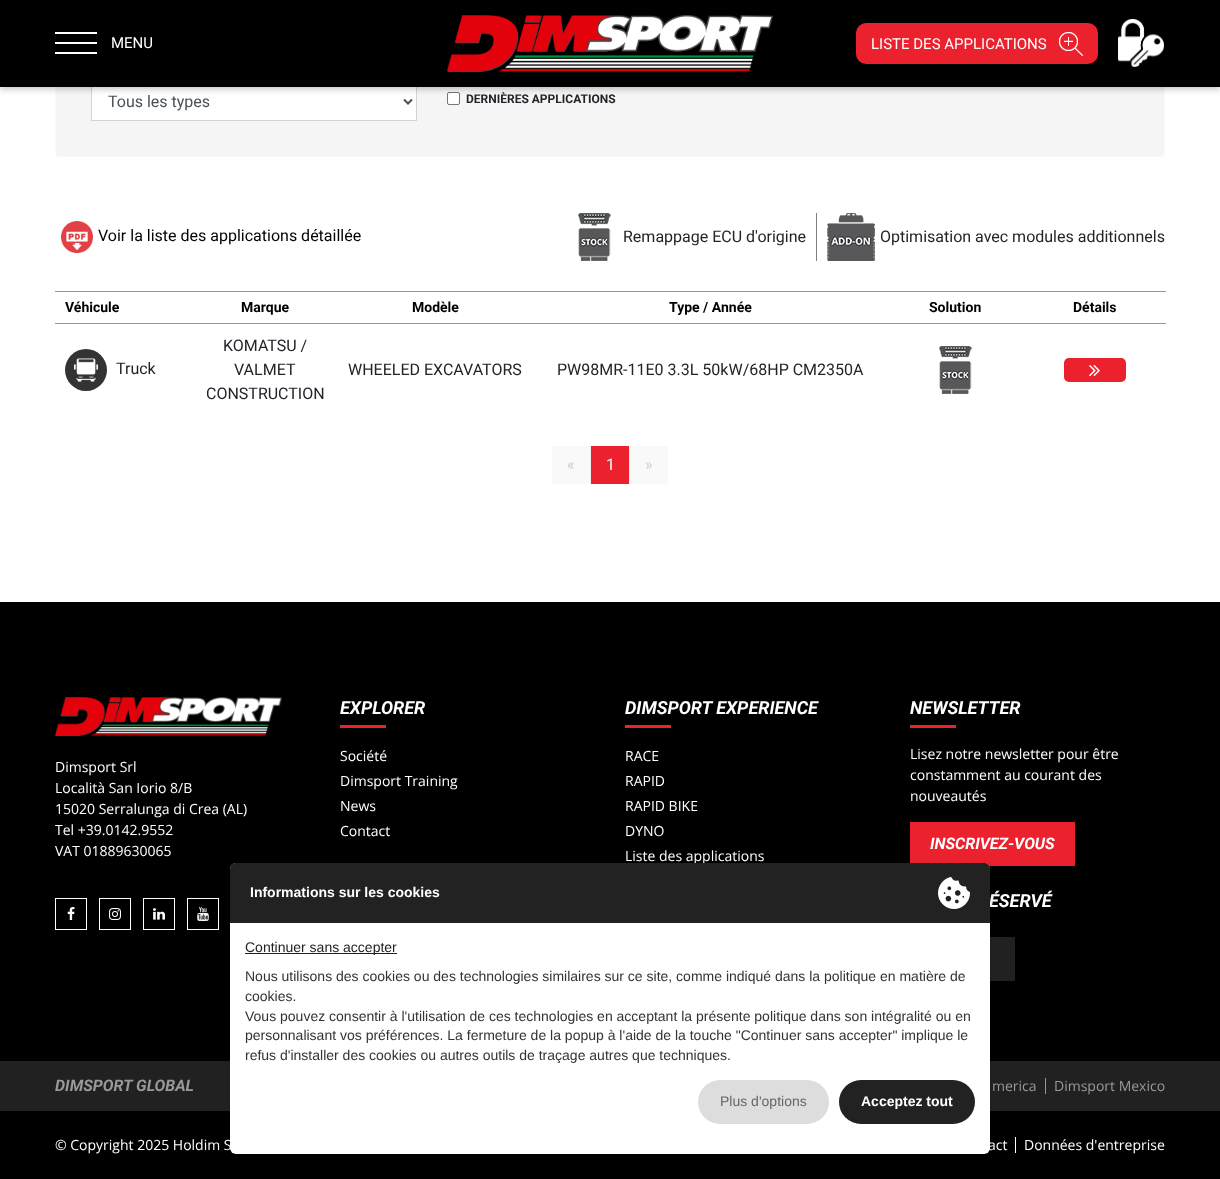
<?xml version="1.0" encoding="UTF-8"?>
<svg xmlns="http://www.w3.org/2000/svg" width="1220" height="1179">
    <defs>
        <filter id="blur1" x="-50%" y="-200%" width="200%" height="500%"><feGaussianBlur stdDeviation="3"/></filter>
    </defs>
    <rect width="100%" height="100%" fill="#FFFFFF"/>
    <rect x="55.5" y="-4.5" width="1109" height="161" rx="3.5" fill="#F5F5F5" stroke="#F9F9F9"/>
    <rect x="92" y="87" width="324" height="33" fill="#FFFFFF"/>
    <rect x="91.5" y="83.5" width="325" height="37" fill="none" stroke="#CED4DA"/>
    <path d="M 404 99.5 L 408 103.5 L 412 99.5" fill="none" stroke="#495057" stroke-width="2"/>
    <rect x="447.5" y="92.5" width="12" height="12" rx="1.5" fill="#FFFFFF" stroke="#767676"/>
    <rect x="0" y="2" width="1220" height="87" fill="#000000" fill-opacity="0.25" filter="url(#blur1)"/>
    <rect x="0" y="0" width="1220" height="87" fill="#000000"/>
    <rect x="55" y="32" width="42" height="2" fill="#FFFFFF"/>
    <rect x="55" y="42" width="42" height="2" fill="#FFFFFF"/>
    <rect x="55" y="52" width="42" height="2" fill="#FFFFFF"/>
    <text x="111" y="48" font-family="Roboto" font-size="15" fill="#FFFFFF">MENU</text>
    <image x="447" y="15" width="326" height="57" href="img_01.png"/>
    <rect x="856" y="23" width="242" height="41" rx="10" fill="#EB212E"/>
    <text x="871" y="49" font-family="Roboto" font-size="15" fill="#FFFFFF">LISTE DES APPLICATIONS</text>
    <image x="1059" y="32" width="24" height="24" href="img_02.png"/>
    <image x="1118" y="19" width="46" height="48" href="img_03.png"/>
    <text x="108" y="107" font-family="Roboto" font-size="16" fill="#495057">Tous les types</text>
    <text x="466" y="103" font-family="Roboto" font-size="12" font-weight="700" fill="#212529">DERNIÈRES APPLICATIONS</text>
    <image x="61" y="221" width="32" height="32" href="img_04.png"/>
    <text x="98" y="241" font-family="Roboto" font-size="16" fill="#000000">Voir la liste des applications détaillée</text>
    <image x="578" y="213" width="33" height="48" href="img_05.png"/>
    <text x="623" y="242" font-family="Roboto" font-size="16" fill="#212529">Remappage ECU d'origine</text>
    <rect x="816" y="213" width="1" height="48" fill="#7F7F7F"/>
    <image x="827" y="213" width="48" height="48" href="img_06.png"/>
    <text x="880" y="242" font-family="Roboto" font-size="16" fill="#212529">Optimisation avec modules additionnels</text>
    <text x="65" y="312" font-family="Roboto" font-size="14" font-weight="700" fill="#000000">Véhicule</text>
    <text x="241" y="312" font-family="Roboto" font-size="14" font-weight="700" fill="#000000">Marque</text>
    <text x="412" y="312" font-family="Roboto" font-size="14" font-weight="700" fill="#000000">Modèle</text>
    <text x="669" y="312" font-family="Roboto" font-size="14" font-weight="700" fill="#000000">Type / Année</text>
    <text x="929" y="312" font-family="Roboto" font-size="14" font-weight="700" fill="#000000">Solution</text>
    <rect x="55" y="291" width="1111" height="1" fill="#999999"/>
    <rect x="55" y="323" width="1111" height="1" fill="#999999"/>
    <text x="1073" y="312" font-family="Roboto" font-size="14" font-weight="700" fill="#000000">Détails</text>
    <circle cx="86" cy="370" r="21" fill="#333333"/>
    <image x="74" y="358" width="24" height="24" href="img_07.png"/>
    <text x="116" y="374" font-family="Roboto" font-size="16" fill="#212529">Truck</text>
    <text x="223" y="351" font-family="Roboto" font-size="16" fill="#212529">KOMATSU /</text>
    <text x="234" y="375" font-family="Roboto" font-size="16" fill="#212529">VALMET</text>
    <text x="206" y="399" font-family="Roboto" font-size="16" fill="#212529">CONSTRUCTION</text>
    <text x="348" y="375" font-family="Roboto" font-size="16" fill="#212529">WHEELED EXCAVATORS</text>
    <text x="557" y="375" font-family="Roboto" font-size="16" fill="#212529">PW98MR-11E0 3.3L 50kW/68HP CM2350A</text>
    <image x="939" y="346" width="33" height="48" href="img_05.png"/>
    <rect x="1064" y="358" width="62" height="24" rx="5" fill="#EB212E"/>
    <image x="1089" y="365" width="11" height="12" href="img_08.png"/>
    <rect x="552" y="446" width="38" height="38" fill="#F9F9F9"/>
    <text x="567" y="470" font-family="Roboto" font-size="16" fill="#CCCCCC">«</text>
    <rect x="590" y="446" width="1" height="38" fill="#EEEEEE"/>
    <rect x="591" y="446" width="38" height="38" fill="#EB212E"/>
    <text x="606" y="470" font-family="Roboto" font-size="16" fill="#FFFFFF">1</text>
    <rect x="629" y="446" width="1" height="38" fill="#EEEEEE"/>
    <rect x="630" y="446" width="38" height="38" fill="#F9F9F9"/>
    <text x="645" y="470" font-family="Roboto" font-size="16" fill="#CCCCCC">»</text>
    <rect x="0" y="602" width="1220" height="577" fill="#000000"/>
    <image x="55" y="697" width="227" height="39" href="img_09.png"/>
    <text font-family="Open Sans" font-size="14" fill="#FFFFFF">
        <tspan x="55" y="772">Dimsport Srl</tspan>
        <tspan x="55" y="793">Località San Iorio 8/B</tspan>
        <tspan x="55" y="814">15020 Serralunga di Crea (AL)</tspan>
        <tspan x="55" y="835">Tel +39.0142.9552</tspan>
        <tspan x="55" y="856">VAT 01889630065</tspan>
    </text>
    <rect x="55.5" y="898.5" width="31" height="31" fill="none" stroke="#FFFFFF"/>
    <image x="67" y="907" width="8" height="13" href="img_10.png"/>
    <rect x="99.5" y="898.5" width="31" height="31" fill="none" stroke="#FFFFFF"/>
    <image x="109" y="908" width="12" height="12" href="img_11.png"/>
    <rect x="143.5" y="898.5" width="31" height="31" fill="none" stroke="#FFFFFF"/>
    <image x="153" y="908" width="12" height="12" href="img_12.png"/>
    <rect x="187.5" y="898.5" width="31" height="31" fill="none" stroke="#FFFFFF"/>
    <image x="197" y="907" width="12" height="14" href="img_13.png"/>
    <text x="340" y="714" font-family="Roboto" font-size="18" font-weight="700" font-style="italic" fill="#FFFFFF">EXPLORER</text>
    <rect x="340" y="725" width="46" height="3" fill="#EB212E"/>
    <text font-family="Open Sans" font-size="14" fill="#FFFFFF">
        <tspan x="340" y="761">Société</tspan>
        <tspan x="340" y="786">Dimsport Training</tspan>
        <tspan x="340" y="811">News</tspan>
        <tspan x="340" y="836">Contact</tspan>
    </text>
    <text x="625" y="714" font-family="Roboto" font-size="18" font-weight="700" font-style="italic" fill="#FFFFFF">DIMSPORT EXPERIENCE</text>
    <rect x="625" y="725" width="46" height="3" fill="#EB212E"/>
    <text font-family="Open Sans" font-size="14" fill="#FFFFFF">
        <tspan x="625" y="761">RACE</tspan>
        <tspan x="625" y="786">RAPID</tspan>
        <tspan x="625" y="811">RAPID BIKE</tspan>
        <tspan x="625" y="836">DYNO</tspan>
        <tspan x="625" y="861">Liste des applications</tspan>
    </text>
    <text x="910" y="714" font-family="Roboto" font-size="18" font-weight="700" font-style="italic" fill="#FFFFFF">NEWSLETTER</text>
    <rect x="910" y="725" width="46" height="3" fill="#EB212E"/>
    <text font-family="Open Sans" font-size="14" fill="#FFFFFF">
        <tspan x="910" y="759">Lisez notre newsletter pour être</tspan>
        <tspan x="910" y="780">constamment au courant des</tspan>
        <tspan x="910" y="801">nouveautés</tspan>
    </text>
    <rect x="910" y="822" width="165" height="44" fill="#EB212E"/>
    <text x="930" y="849" font-family="Roboto" font-size="16" font-weight="700" font-style="italic" fill="#FFFFFF">INSCRIVEZ-VOUS</text>
    <text x="989" y="907" font-family="Roboto" font-size="18" font-weight="700" font-style="italic" fill="#FFFFFF">ÉSERVÉ</text>
    <rect x="990" y="937" width="25" height="44" fill="#212121"/>
    <rect x="0" y="1061" width="1220" height="50" fill="#212121"/>
    <text x="55" y="1091" font-family="Roboto" font-size="16" font-weight="700" font-style="italic" fill="#999999">DIMSPORT GLOBAL</text>
    <text x="992" y="1091" font-family="Open Sans" font-size="14" fill="#999999">merica</text>
    <rect x="1045" y="1078" width="1" height="16" fill="#999999"/>
    <text x="1054" y="1091" font-family="Open Sans" font-size="14" fill="#999999">Dimsport Mexico</text>
    <text x="55" y="1150" font-family="Open Sans" font-size="14" fill="#FFFFFF">© Copyright 2025 Holdim S</text>
    <text x="988" y="1150" font-family="Open Sans" font-size="14" fill="#FFFFFF">act</text>
    <rect x="1015" y="1137" width="1" height="16" fill="#FFFFFF"/>
    <text x="1024" y="1150" font-family="Open Sans" font-size="14" fill="#FFFFFF">Données d'entreprise</text>
    <rect x="230" y="865" width="760" height="291" rx="6" fill="#000000" fill-opacity="0.15" filter="url(#blur1)"/>
    <rect x="230" y="863" width="760" height="291" rx="6" fill="#FFFFFF"/>
    <path d="M 236 863 H 984 C 987.5 863 990 865.5 990 869 V 923 H 230 V 869 C 230 865.5 232.5 863 236 863 Z" fill="#222222"/>
    <text x="250" y="897" font-family="Liberation Sans" font-size="14" font-weight="700" fill="#FFFFFF">Informations sur les cookies</text>
    <image x="938" y="877" width="32" height="32" href="img_14.png"/>
    <rect x="245" y="953" width="152" height="1" fill="#222222"/>
    <text x="245" y="952" font-family="Liberation Sans" font-size="14" fill="#222222">Continuer sans accepter</text>
    <text font-family="Liberation Sans" font-size="14" fill="#333333">
        <tspan x="245" y="981">Nous utilisons des cookies ou des technologies similaires sur ce site, comme indiqué dans la politique en matière de</tspan>
        <tspan x="245" y="1001">cookies.</tspan>
        <tspan x="245" y="1021">Vous pouvez consentir à l'utilisation de ces technologies en acceptant la présente politique dans son intégralité ou en</tspan>
        <tspan x="245" y="1040">personnalisant vos préférences. La fermeture de la popup à l'aide de la touche "Continuer sans accepter" implique le</tspan>
        <tspan x="245" y="1060">refus d'installer des cookies ou autres outils de traçage autres que techniques.</tspan>
    </text>
    <rect x="698" y="1080" width="131" height="44" rx="22" fill="#DDDDDD"/>
    <text x="720" y="1106" font-family="Liberation Sans" font-size="14" fill="#666666">Plus d'options</text>
    <rect x="839" y="1080" width="136" height="44" rx="22" fill="#222222"/>
    <text x="861" y="1106" font-family="Liberation Sans" font-size="14" font-weight="700" fill="#FFFFFF">Acceptez tout</text>
</svg>
